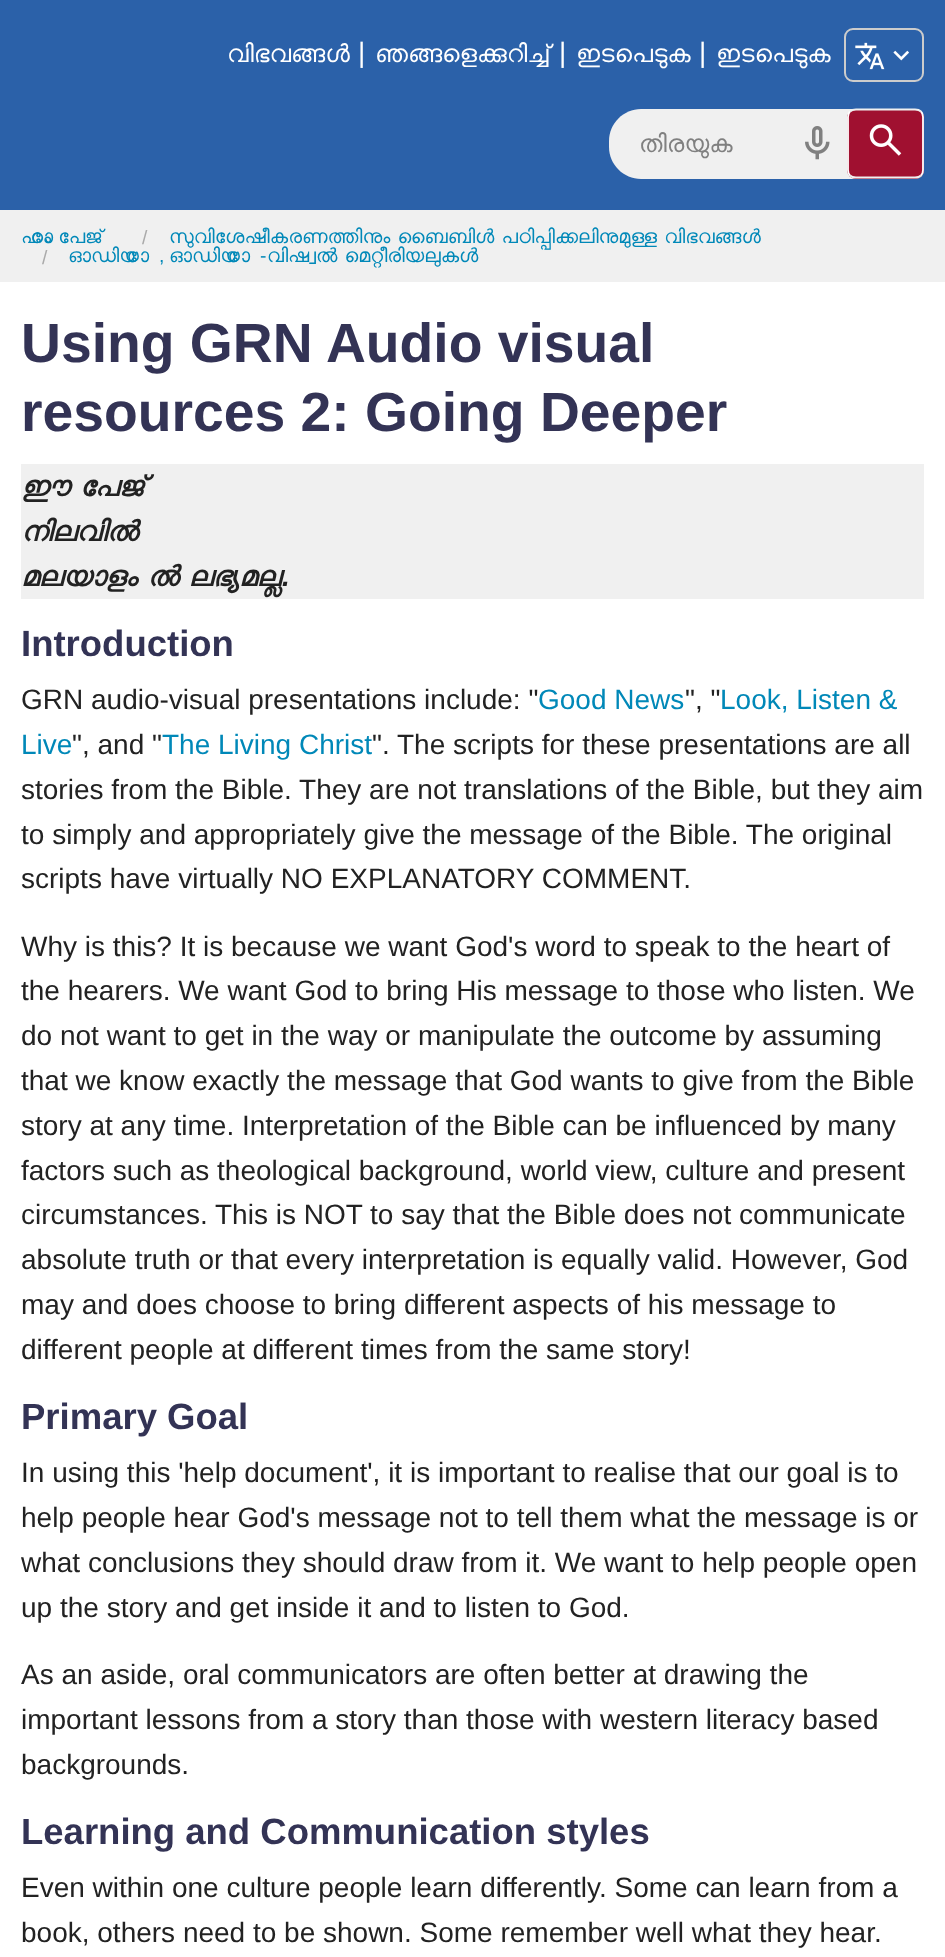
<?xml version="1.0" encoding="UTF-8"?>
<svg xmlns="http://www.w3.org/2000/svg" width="945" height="1957">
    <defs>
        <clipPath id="clip1"><rect x="639" y="130" width="133" height="29"/></clipPath>
    </defs>
    <rect width="100%" height="100%" fill="#FFFFFF"/>
    <rect x="0" y="0" width="945" height="210" fill="#2B61A9"/>
    <text x="227" y="62" font-family="FreeSans" font-size="24.5" fill="#FFFFFF">വിഭവങ്ങൾ</text>
    <text x="358" y="62" font-family="Liberation Sans" font-size="28" fill="#FFFFFF">|</text>
    <text x="375" y="62" font-family="FreeSans" font-size="24.5" fill="#FFFFFF">ഞങ്ങളെക്കുറിച്ച്</text>
    <text x="559" y="62" font-family="Liberation Sans" font-size="28" fill="#FFFFFF">|</text>
    <text x="576" y="62" font-family="FreeSans" font-size="24.5" fill="#FFFFFF">ഇടപെടുക</text>
    <text x="699" y="62" font-family="Liberation Sans" font-size="28" fill="#FFFFFF">|</text>
    <text x="716" y="62" font-family="FreeSans" font-size="24.5" fill="#FFFFFF">ഇടപെടുക</text>
    <rect x="845" y="29" width="78" height="52" rx="8" fill="none" stroke="#CCCCCC" stroke-width="2"/>
    <image x="855" y="42" width="30" height="28" href="img_01.png"/>
    <image x="893" y="50" width="16" height="11" href="img_02.png"/>
    <path d="M 641 109 H 915 C 920 109 924 113 924 118 V 170 C 924 175 920 179 915 179 H 641 C 623.5 179 609 164.5 609 147 V 141 C 609 123.5 623.5 109 641 109 Z" fill="#F0F0F0"/>
    <g clip-path="url(#clip1)">
        <text x="639" y="152" font-family="FreeSans" font-size="24.5" fill="#808080">തിരയുക</text>
    </g>
    <image x="805" y="126" width="25" height="34" href="img_03.png"/>
    <rect x="847" y="109" width="77" height="70" rx="9" fill="#A01030"/>
    <path d="M 850 111.5 C 851.5 110 853.5 109.5 856 109.5 H 915 C 917.5 109.5 919.5 110 921 111.5" fill="none" stroke="#F0F0F0" stroke-width="1.8"/>
    <path d="M 921 111.5 C 922.5 113 923 115 923 117 V 170 C 923 172 922.5 174 921 175.5" fill="none" stroke="#FFFFFF" stroke-width="1.8"/>
    <path d="M 921 175.5 C 919.5 177 917.5 177.5 915 177.5 H 856 C 853.5 177.5 851.5 177 850 175.5" fill="none" stroke="#F0F0F0" stroke-width="1.8"/>
    <path d="M 850 175.5 C 848.5 174 848 172 848 170 V 117 C 848 115 848.5 113 850 111.5" fill="none" stroke="#FFFFFF" stroke-width="1.8"/>
    <image x="869" y="124" width="33" height="32" href="img_04.png"/>
    <rect x="0" y="210" width="945" height="72" fill="#F0F0F0"/>
    <text x="21" y="243" word-spacing="-0.5" font-family="FreeSans" font-size="19.25" fill="#0088B8">ഹോം പേജ്</text>
    <text x="142" y="244" font-family="Liberation Sans" font-size="19.25" fill="#AAAAAA">/</text>
    <text x="169" y="243" word-spacing="-0.5" font-family="FreeSans" font-size="19.25" fill="#0088B8">സുവിശേഷീകരണത്തിനും ബൈബിൾ പഠിപ്പിക്കലിനുമുള്ള വിഭവങ്ങൾ</text>
    <text x="42" y="264" font-family="Liberation Sans" font-size="19.25" fill="#AAAAAA">/</text>
    <text x="68" y="262" font-family="FreeSans" font-size="19.25" fill="#0088B8">ഓഡിയോ</text>
    <text x="169" y="262" font-family="FreeSans" font-size="19.25" fill="#0088B8">ഓഡിയോ</text>
    <text x="260" y="262" font-family="Liberation Sans" font-size="19.25" fill="#0088B8">-</text>
    <text x="267" y="262" word-spacing="-0.5" font-family="FreeSans" font-size="19.25" fill="#0088B8">വിഷ്വൽ മെറ്റീരിയലുകൾ</text>
    <text x="159" y="262" font-family="Liberation Sans" font-size="19.25" fill="#0088B8">,</text>
    <text font-family="Liberation Sans" font-size="55.25" font-weight="700" fill="#333355">
        <tspan x="21" y="362">Using GRN Audio visual</tspan>
        <tspan x="21" y="431">resources 2: Going Deeper</tspan>
    </text>
    <rect x="21" y="464" width="903" height="135" fill="#F0F0F0"/>
    <text font-family="FreeSans" font-size="28" font-weight="700" font-style="italic" fill="#222222">
        <tspan x="21" y="496" word-spacing="-1">ഈ പേജ്</tspan>
        <tspan x="21" y="541">നിലവിൽ</tspan>
        <tspan x="21" y="586" word-spacing="-1">മലയാളം ൽ ലഭ്യമല്ല</tspan>
    </text>
    <text x="282" y="586" font-family="Liberation Sans" font-size="28" font-weight="700" font-style="italic" fill="#222222">.</text>
    <text x="21" y="656" font-family="Liberation Sans" font-size="36.5" font-weight="700" fill="#333355">Introduction</text>
    <text x="21" y="709" font-family="Liberation Sans" font-size="28" fill="#222222">GRN audio-visual presentations include: "</text>
    <text x="538" y="709" font-family="Liberation Sans" font-size="28" fill="#0088B8">Good News</text>
    <text x="685" y="709" font-family="Liberation Sans" font-size="28" fill="#222222">", "</text>
    <text x="720" y="709" font-family="Liberation Sans" font-size="28" fill="#0088B8">Look, Listen &amp;</text>
    <text x="21" y="754" font-family="Liberation Sans" font-size="28" fill="#0088B8">Live</text>
    <text x="72" y="754" font-family="Liberation Sans" font-size="28" fill="#222222">", and "</text>
    <text x="162" y="754" font-family="Liberation Sans" font-size="28" fill="#0088B8">The Living Christ</text>
    <text x="372" y="754" font-family="Liberation Sans" font-size="28" fill="#222222">". The scripts for these presentations are all</text>
    <text font-family="Liberation Sans" font-size="28" fill="#222222">
        <tspan x="21" y="799">stories from the Bible. They are not translations of the Bible, but they aim</tspan>
        <tspan x="21" y="844">to simply and appropriately give the message of the Bible. The original</tspan>
        <tspan x="21" y="888">scripts have virtually NO EXPLANATORY COMMENT.</tspan>
    </text>
    <text font-family="Liberation Sans" font-size="28" fill="#222222">
        <tspan x="21" y="956">Why is this? It is because we want God's word to speak to the heart of</tspan>
        <tspan x="21" y="1000">the hearers. We want God to bring His message to those who listen. We</tspan>
        <tspan x="21" y="1045">do not want to get in the way or manipulate the outcome by assuming</tspan>
        <tspan x="21" y="1090">that we know exactly the message that God wants to give from the Bible</tspan>
        <tspan x="21" y="1135">story at any time. Interpretation of the Bible can be influenced by many</tspan>
        <tspan x="21" y="1180">factors such as theological background, world view, culture and present</tspan>
        <tspan x="21" y="1224">circumstances. This is NOT to say that the Bible does not communicate</tspan>
        <tspan x="21" y="1269">absolute truth or that every interpretation is equally valid. However, God</tspan>
        <tspan x="21" y="1314">may and does choose to bring different aspects of his message to</tspan>
        <tspan x="21" y="1359">different people at different times from the same story!</tspan>
    </text>
    <text x="21" y="1429" font-family="Liberation Sans" font-size="36.5" font-weight="700" fill="#333355">Primary Goal</text>
    <text font-family="Liberation Sans" font-size="28" fill="#222222">
        <tspan x="21" y="1482">In using this 'help document', it is important to realise that our goal is to</tspan>
        <tspan x="21" y="1527">help people hear God's message not to tell them what the message is or</tspan>
        <tspan x="21" y="1572">what conclusions they should draw from it. We want to help people open</tspan>
        <tspan x="21" y="1617">up the story and get inside it and to listen to God.</tspan>
    </text>
    <text font-family="Liberation Sans" font-size="28" fill="#222222">
        <tspan x="21" y="1684">As an aside, oral communicators are often better at drawing the</tspan>
        <tspan x="21" y="1729">important lessons from a story than those with western literacy based</tspan>
        <tspan x="21" y="1774">backgrounds.</tspan>
    </text>
    <text x="21" y="1844" font-family="Liberation Sans" font-size="36.5" font-weight="700" fill="#333355">Learning and Communication styles</text>
    <text font-family="Liberation Sans" font-size="28" fill="#222222">
        <tspan x="21" y="1897">Even within one culture people learn differently. Some can learn from a</tspan>
        <tspan x="21" y="1942">book, others need to be shown. Some remember well what they hear.</tspan>
    </text>
</svg>
